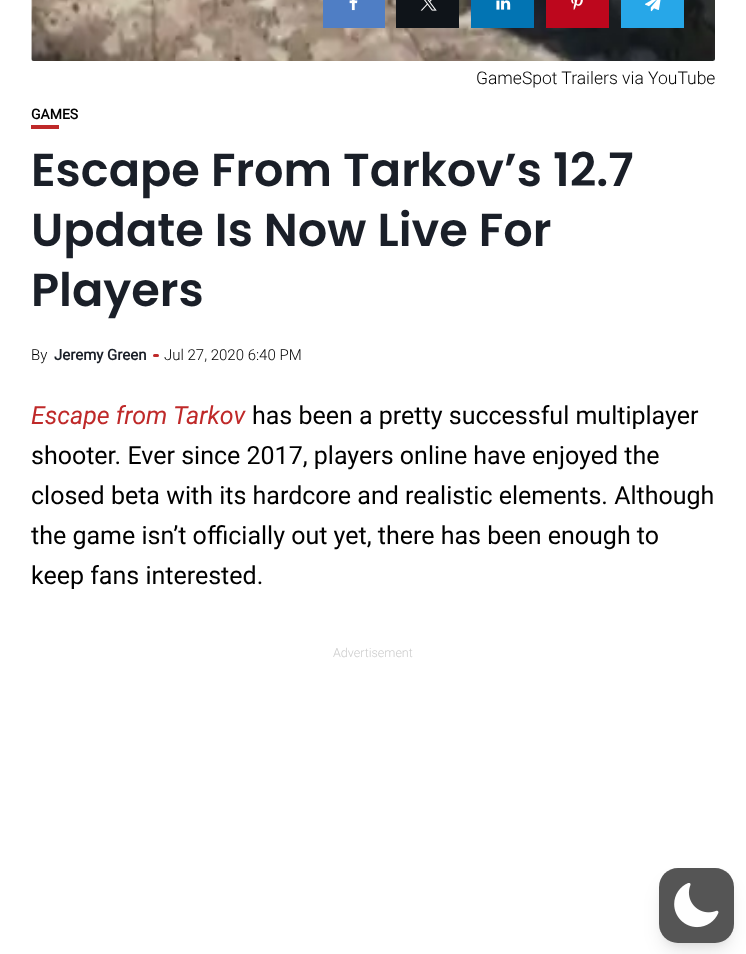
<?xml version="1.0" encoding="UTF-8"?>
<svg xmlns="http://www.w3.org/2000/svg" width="746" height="954">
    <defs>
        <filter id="blur1" x="-50%" y="-200%" width="200%" height="500%"><feGaussianBlur stdDeviation="4"/></filter>
        <filter id="blur2" x="-50%" y="-200%" width="200%" height="500%"><feGaussianBlur stdDeviation="9.5"/></filter>
    </defs>
    <rect width="100%" height="100%" fill="#FFFFFF"/>
    <image x="31" y="0" width="684" height="61" href="img_01.png"/>
    <rect x="323" y="0" width="62" height="28" fill="#4F7EC5"/>
    <image x="349" y="0" width="9" height="11" href="img_02.png"/>
    <rect x="396" y="0" width="63" height="28" fill="#0F1419"/>
    <image x="420" y="0" width="17" height="11" href="img_03.png"/>
    <rect x="471" y="0" width="63" height="28" fill="#0274B3"/>
    <image x="496" y="0" width="15" height="10" href="img_04.png"/>
    <rect x="546" y="0" width="63" height="28" fill="#BD071D"/>
    <image x="571" y="0" width="12" height="10" href="img_05.png"/>
    <rect x="621" y="0" width="63" height="28" fill="#27A7E8"/>
    <image x="645" y="0" width="16" height="12" href="img_06.png"/>
    <text x="476" y="84" font-family="Roboto" font-size="17.5" font-weight="300" fill="#000000">GameSpot Trailers via YouTube</text>
    <text x="31" y="119" font-family="Roboto" font-size="14" font-weight="700" fill="#000000">GAMES</text>
    <rect x="31" y="125" width="28" height="4" fill="#BF2929"/>
    <text font-family="Poppins" font-size="46.25" font-weight="600" fill="#1A1F28">
        <tspan x="31" y="186">Escape From Tarkov’s 12.7</tspan>
        <tspan x="31" y="246">Update Is Now Live For</tspan>
        <tspan x="31" y="306">Players</tspan>
    </text>
    <text x="31" y="360" font-family="Roboto" font-size="15" font-weight="300" fill="#000000">By</text>
    <text x="54" y="360" font-family="Roboto" font-size="15" font-weight="700" fill="#1A1F28">Jeremy Green</text>
    <rect x="153" y="354" width="6" height="3" rx="1.5" fill="#BF2929"/>
    <text x="164" y="360" font-family="Roboto" font-size="15" font-weight="300" fill="#000000">Jul 27, 2020 6:40 PM</text>
    <text x="31" y="424" font-family="Roboto" font-size="25" font-style="italic" fill="#BF2929">Escape from Tarkov</text>
    <text x="252" y="424" font-family="Roboto" font-size="25" fill="#000000">has been a pretty successful multiplayer</text>
    <text font-family="Roboto" font-size="25" fill="#000000">
        <tspan x="31" y="464">shooter. Ever since 2017, players online have enjoyed the</tspan>
        <tspan x="31" y="504">closed beta with its hardcore and realistic elements. Although</tspan>
        <tspan x="31" y="544">the game isn’t officially out yet, there has been enough to</tspan>
        <tspan x="31" y="584">keep fans interested.</tspan>
    </text>
    <text x="333" y="657" font-family="Roboto" font-size="12.5" font-weight="300" fill="#CCCCCC">Advertisement</text>
    <rect x="664" y="878" width="65" height="65" rx="14" fill="#000000" fill-opacity="0.1" filter="url(#blur1)"/>
    <rect x="663" y="884" width="67" height="67" rx="15" fill="#000000" fill-opacity="0.1" filter="url(#blur2)"/>
    <rect x="659" y="868" width="75" height="75" rx="19" fill="#555555"/>
    <image x="674" y="883" width="45" height="45" href="img_07.png"/>
</svg>
